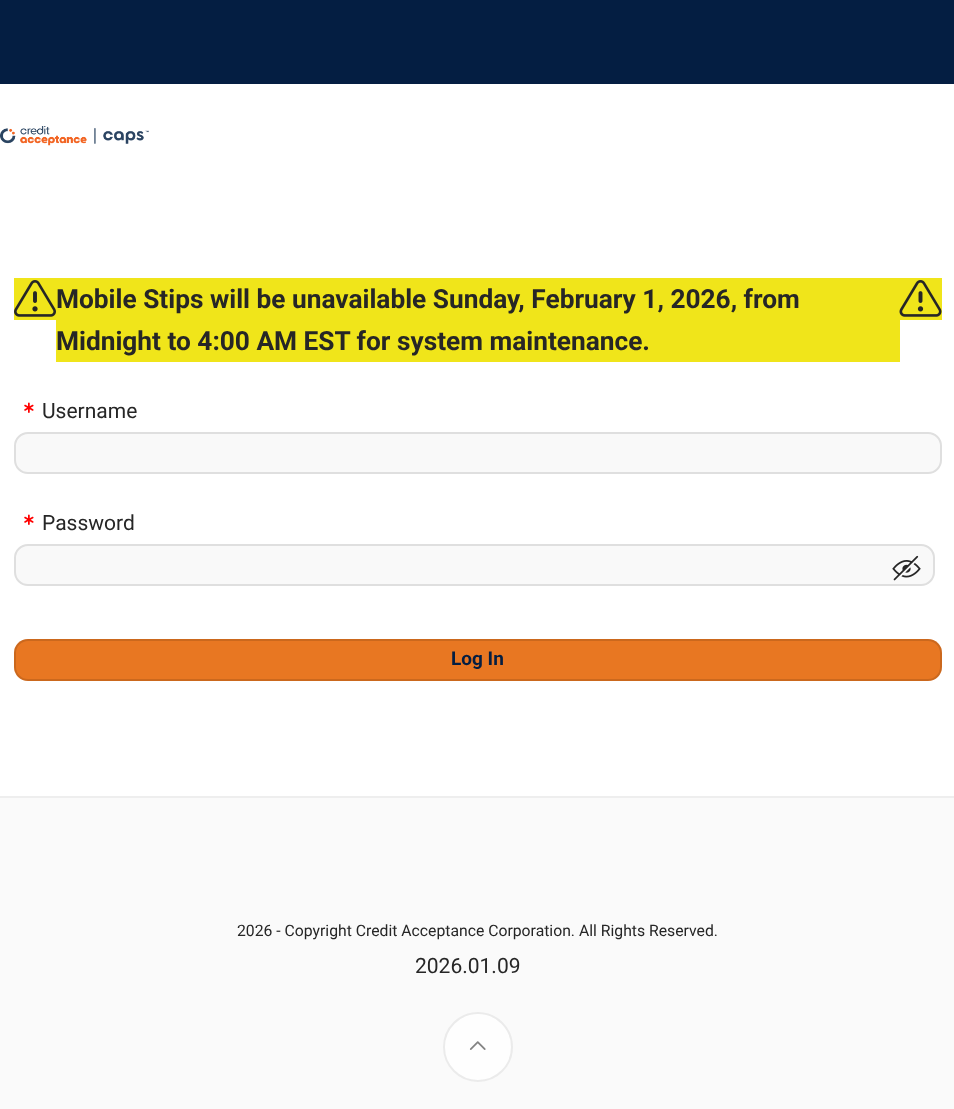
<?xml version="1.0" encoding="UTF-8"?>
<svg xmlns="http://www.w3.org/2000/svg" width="954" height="1109">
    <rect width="100%" height="100%" fill="#FFFFFF"/>
    <rect x="0" y="0" width="954" height="84" fill="#041E42"/>
    <image x="0" y="126" width="149" height="20" href="img_01.png"/>
    <rect x="14" y="278" width="42" height="42" fill="#F0E51A"/>
    <image x="14" y="280" width="42" height="37" href="img_02.png"/>
    <rect x="56" y="278" width="844" height="84" fill="#F0E51A"/>
    <text font-family="Roboto" font-size="26.25" font-weight="700" fill="#262626">
        <tspan x="56" y="308">Mobile Stips will be unavailable Sunday, February 1, 2026, from</tspan>
        <tspan x="56" y="350">Midnight to 4:00 AM EST for system maintenance.</tspan>
    </text>
    <rect x="900" y="278" width="42" height="42" fill="#F0E51A"/>
    <image x="899" y="280" width="43" height="37" href="img_03.png"/>
    <image x="24" y="402" width="10" height="11" href="img_04.png"/>
    <text x="42" y="418" font-family="Roboto" font-size="21" fill="#262626">Username</text>
    <rect x="15" y="433" width="926" height="40" rx="13" fill="#F9F9F9" stroke="#DFDFDF" stroke-width="2"/>
    <image x="24" y="514" width="10" height="11" href="img_04.png"/>
    <text x="42" y="530" font-family="Roboto" font-size="21" fill="#262626">Password</text>
    <rect x="15" y="545" width="919" height="40" rx="13" fill="#F9F9F9" stroke="#DFDFDF" stroke-width="2"/>
    <image x="892" y="555" width="29" height="26" href="img_05.png"/>
    <rect x="14" y="639" width="928" height="42" rx="14" fill="#E87722"/>
    <rect x="15" y="640" width="926" height="40" rx="13" fill="none" stroke="#000000" stroke-opacity="0.12" stroke-width="2"/>
    <text x="451" y="665" font-family="Roboto" font-size="19" font-weight="700" fill="#041E42">Log In</text>
    <rect x="0" y="798" width="954" height="311" fill="#FAFAFA"/>
    <rect x="0" y="796" width="954" height="2" fill="#EEEEEE"/>
    <text x="237" y="936" font-family="Roboto" font-size="15.75" fill="#262626">2026 - Copyright Credit Acceptance Corporation. All Rights Reserved.</text>
    <text x="415" y="973" font-family="Roboto" font-size="21" fill="#262626">2026.01.09</text>
    <circle cx="478" cy="1047" r="34" fill="#FEFEFE" stroke="#EBEBEB" stroke-width="2"/>
    <image x="469" y="1041" width="17" height="9" href="img_06.png"/>
</svg>
